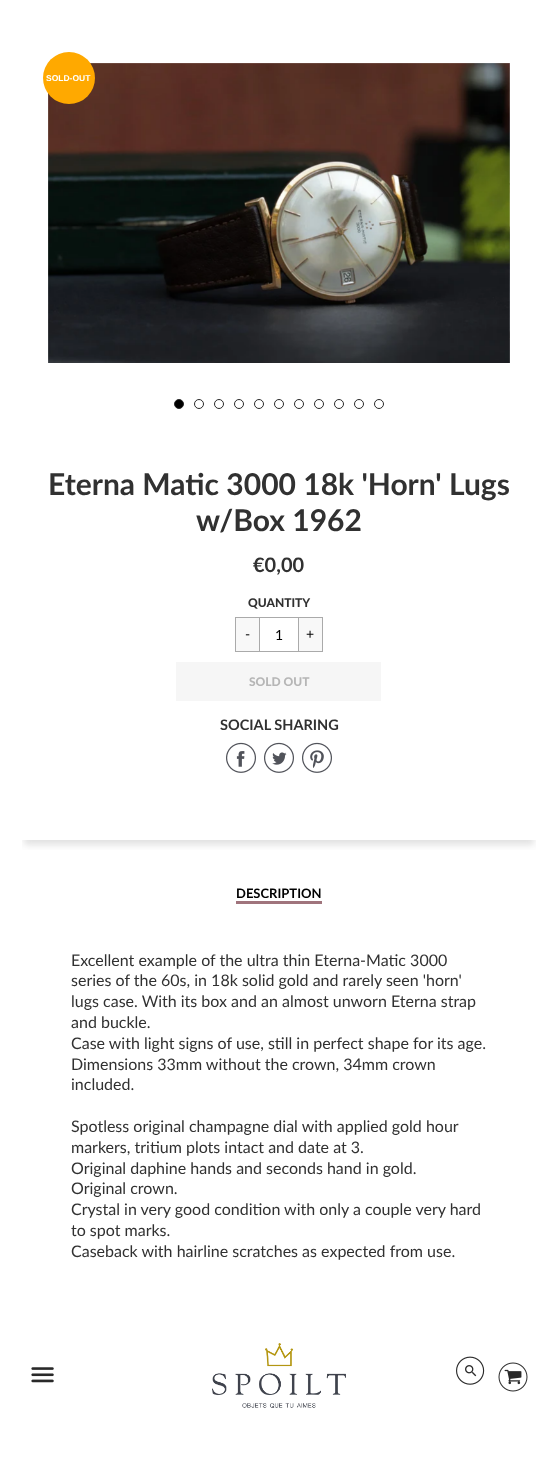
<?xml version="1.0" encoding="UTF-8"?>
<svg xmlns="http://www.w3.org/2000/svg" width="558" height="1463">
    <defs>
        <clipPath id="clip1"><rect x="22" y="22" width="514" height="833"/></clipPath>
        <clipPath id="clip2"><rect x="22" y="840" width="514" height="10"/></clipPath>
        <filter id="blur1" x="-50%" y="-200%" width="200%" height="500%"><feGaussianBlur stdDeviation="3.5"/></filter>
    </defs>
    <rect width="100%" height="100%" fill="#FFFFFF"/>
    <g clip-path="url(#clip1)">
        <g clip-path="url(#clip2)">
            <rect x="24" y="31" width="510" height="814" fill="#A3A3A3" fill-opacity="0.32" filter="url(#blur1)"/>
        </g>
    </g>
    <image x="48" y="63" width="462" height="300" href="img_01.png"/>
    <image x="509" y="63" width="1" height="276" href="img_02.png"/>
    <circle cx="69" cy="78" r="26" fill="#FFA900"/>
    <text x="46" y="81" font-family="Liberation Sans" font-size="8.5" font-weight="700" fill="#FFFFFF">SOLD-OUT</text>
    <circle cx="179" cy="404" r="4.5" fill="#000000" stroke="#292929"/>
    <circle cx="199" cy="404" r="4.5" fill="none" stroke="#292929"/>
    <circle cx="219" cy="404" r="4.5" fill="none" stroke="#292929"/>
    <circle cx="239" cy="404" r="4.5" fill="none" stroke="#292929"/>
    <circle cx="259" cy="404" r="4.5" fill="none" stroke="#292929"/>
    <circle cx="279" cy="404" r="4.5" fill="none" stroke="#292929"/>
    <circle cx="299" cy="404" r="4.5" fill="none" stroke="#292929"/>
    <circle cx="319" cy="404" r="4.5" fill="none" stroke="#292929"/>
    <circle cx="339" cy="404" r="4.5" fill="none" stroke="#292929"/>
    <circle cx="359" cy="404" r="4.5" fill="none" stroke="#292929"/>
    <circle cx="379" cy="404" r="4.5" fill="none" stroke="#292929"/>
    <text x="48" y="495" font-family="Lato" font-size="30" font-weight="700" fill="#313131">Eterna Matic 3000 18k 'Horn' Lugs</text>
    <text x="196" y="531" font-family="Lato" font-size="30" font-weight="700" fill="#313131">w/Box 1962</text>
    <text x="253" y="572" font-family="Lato" font-size="20" font-weight="700" fill="#313131">€0,00</text>
    <text x="248" y="607" font-family="Lato" font-size="12" font-weight="900" fill="#313131">QUANTITY</text>
    <rect x="259" y="617" width="40" height="1" fill="#AAAAAA"/>
    <rect x="259" y="651" width="40" height="1" fill="#AAAAAA"/>
    <rect x="235.5" y="617.5" width="24" height="34" fill="#F8F8F8" stroke="#AAAAAA"/>
    <text x="245" y="639" font-family="Lato" font-size="14" fill="#000000">-</text>
    <text x="275" y="640" font-family="Lato" font-size="14" fill="#000000">1</text>
    <rect x="298.5" y="617.5" width="24" height="34" fill="#F8F8F8" stroke="#AAAAAA"/>
    <text x="306" y="639" font-family="Lato" font-size="14" fill="#000000">+</text>
    <rect x="176" y="662" width="205" height="39" fill="#F6F6F6"/>
    <text x="249" y="686" font-family="Lato" font-size="12" font-weight="900" fill="#B6B6B6">SOLD OUT</text>
    <text x="220" y="730" font-family="Lato" font-size="14.5" font-weight="700" fill="#313131">SOCIAL SHARING</text>
    <image x="226" y="742" width="30" height="31" href="img_03.png"/>
    <image x="264" y="742" width="30" height="31" href="img_04.png"/>
    <image x="302" y="742" width="30" height="31" href="img_05.png"/>
    <rect x="236" y="901" width="86" height="3" fill="#A0747C"/>
    <text x="236" y="898" font-family="Lato" font-size="13" font-weight="700" fill="#000000">DESCRIPTION</text>
    <text font-family="Lato" font-size="16" fill="#313131">
        <tspan x="71" y="966">Excellent example of the ultra thin Eterna-Matic 3000</tspan>
        <tspan x="71" y="986">series of the 60s, in 18k solid gold and rarely seen 'horn'</tspan>
        <tspan x="71" y="1007">lugs case. With its box and an almost unworn Eterna strap</tspan>
        <tspan x="71" y="1028">and buckle.</tspan>
        <tspan x="71" y="1049">Case with light signs of use, still in perfect shape for its age.</tspan>
        <tspan x="71" y="1070">Dimensions 33mm without the crown, 34mm crown</tspan>
        <tspan x="71" y="1090">included.</tspan>
    </text>
    <text font-family="Lato" font-size="16" fill="#313131">
        <tspan x="71" y="1132">Spotless original champagne dial with applied gold hour</tspan>
        <tspan x="71" y="1153">markers, tritium plots intact and date at 3.</tspan>
        <tspan x="71" y="1174">Original daphine hands and seconds hand in gold.</tspan>
        <tspan x="71" y="1194">Original crown.</tspan>
        <tspan x="71" y="1215">Crystal in very good condition with only a couple very hard</tspan>
        <tspan x="71" y="1236">to spot marks.</tspan>
        <tspan x="71" y="1257">Caseback with hairline scratches as expected from use.</tspan>
    </text>
    <image x="31" y="1367" width="23" height="16" href="img_06.png"/>
    <image x="212" y="1343" width="134" height="65" href="img_07.png"/>
    <image x="456" y="1356" width="29" height="29" href="img_08.png"/>
    <image x="498" y="1362" width="30" height="30" href="img_09.png"/>
</svg>
